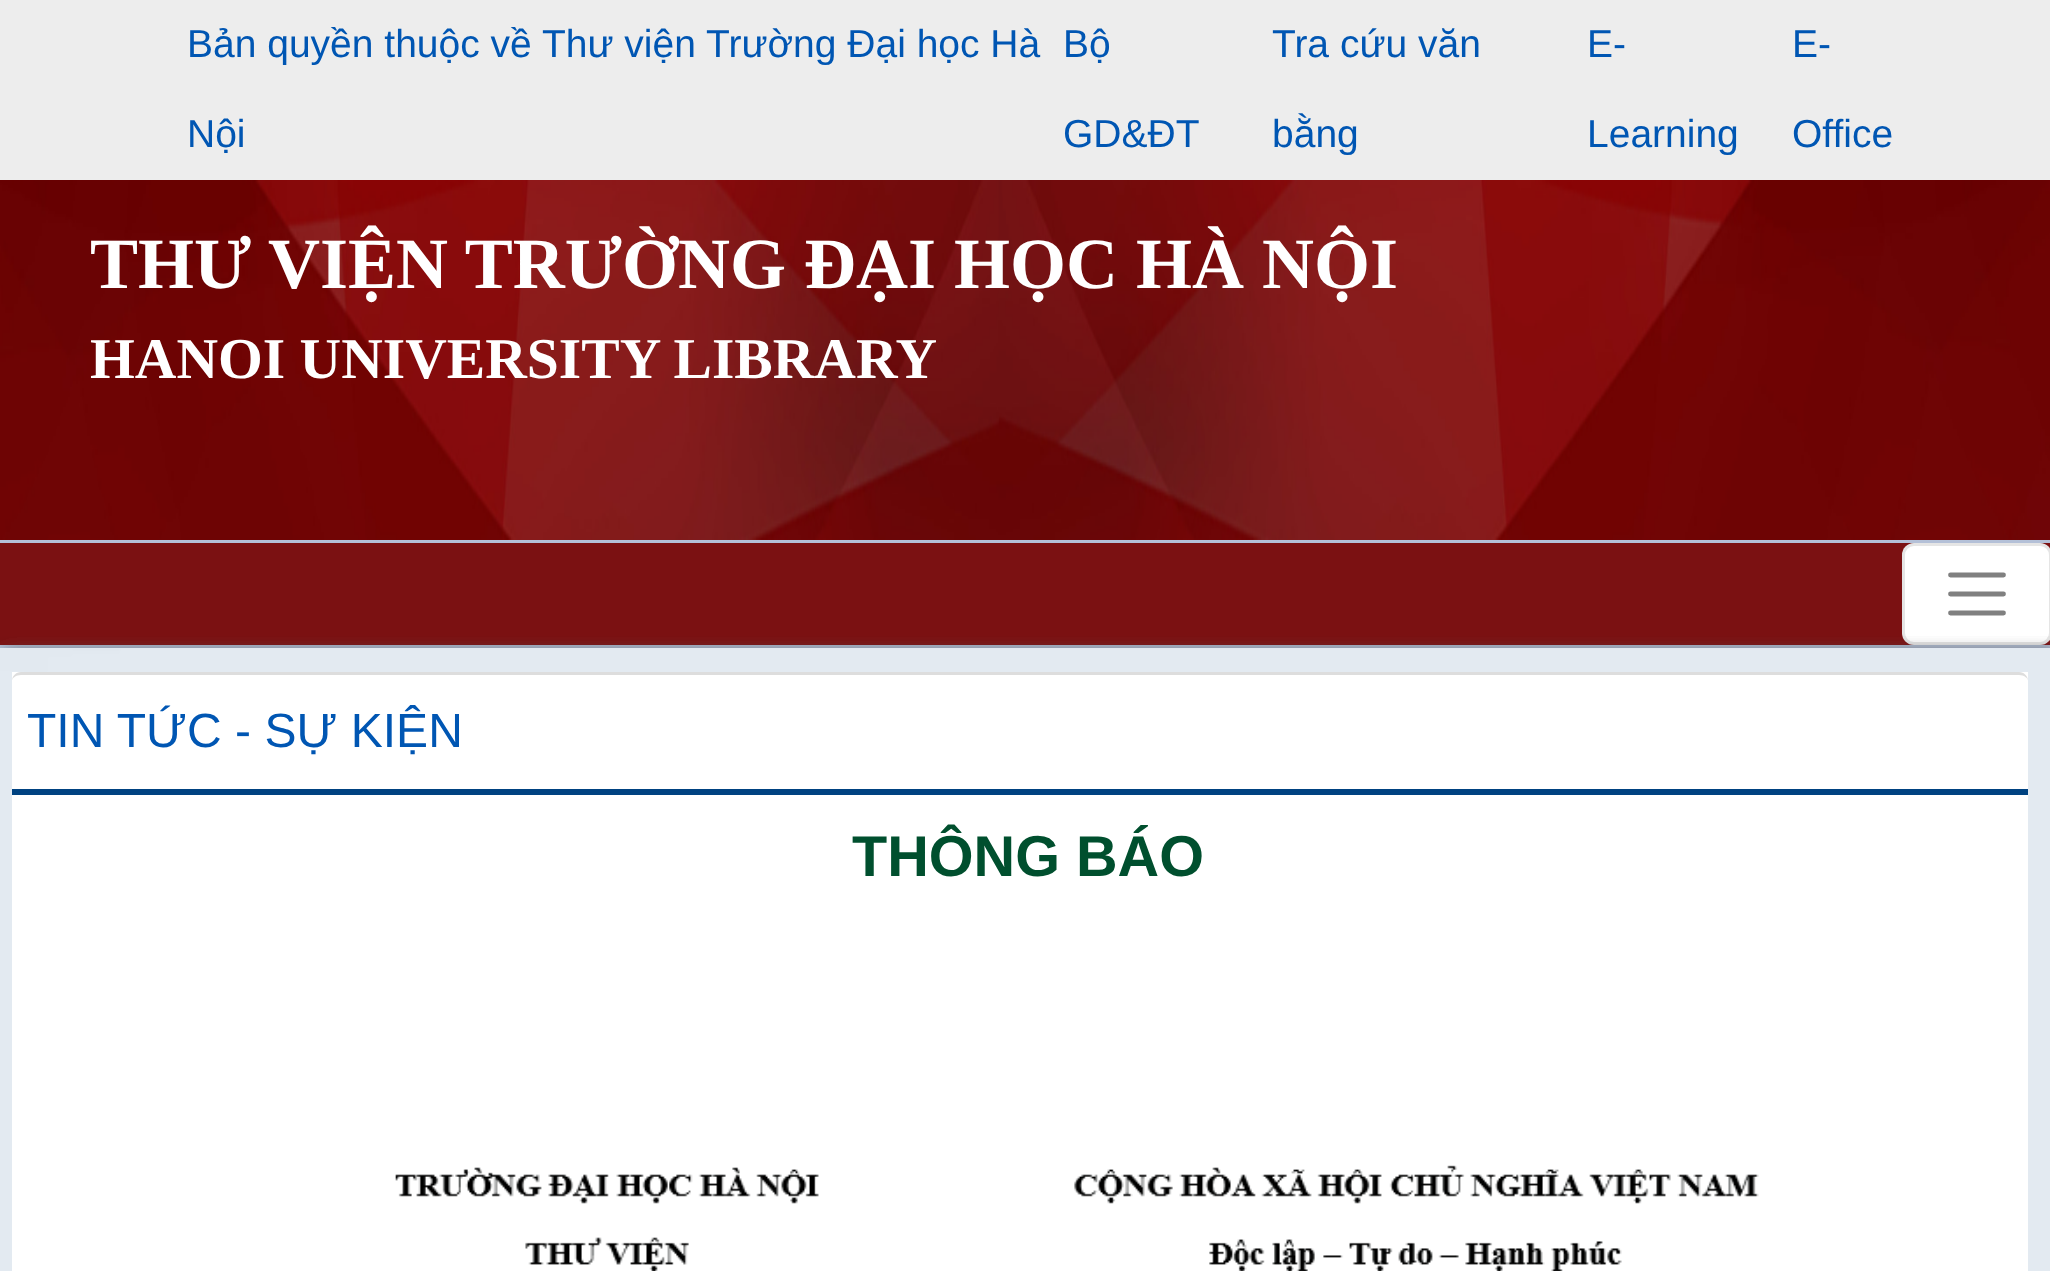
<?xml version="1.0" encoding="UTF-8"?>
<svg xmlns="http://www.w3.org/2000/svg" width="2050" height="1271">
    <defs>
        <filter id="blur1" x="-50%" y="-200%" width="200%" height="500%"><feGaussianBlur stdDeviation="6"/></filter>
        <clipPath id="clip1"><rect x="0" y="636" width="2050" height="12"/></clipPath>
        <filter id="blur2" x="-50%" y="-200%" width="200%" height="500%"><feGaussianBlur stdDeviation="9"/></filter>
    </defs>
    <rect width="100%" height="100%" fill="#EDEDED"/>
    <text x="187" y="57" font-family="Liberation Sans" font-size="39" fill="#0056B3">Bản quyền thuộc về Thư viện Trường Đại học Hà</text>
    <text x="187" y="147" font-family="Liberation Sans" font-size="39" fill="#0056B3">Nội</text>
    <text x="1063" y="57" font-family="Liberation Sans" font-size="39" fill="#0056B3">Bộ</text>
    <text x="1063" y="147" font-family="Liberation Sans" font-size="39" fill="#0056B3">GD&amp;ĐT</text>
    <text x="1272" y="57" font-family="Liberation Sans" font-size="39" fill="#0056B3">Tra cứu văn</text>
    <text x="1272" y="147" font-family="Liberation Sans" font-size="39" fill="#0056B3">bằng</text>
    <text x="1587" y="57" font-family="Liberation Sans" font-size="39" fill="#0056B3">E-</text>
    <text x="1587" y="147" font-family="Liberation Sans" font-size="39" fill="#0056B3">Learning</text>
    <text x="1792" y="57" font-family="Liberation Sans" font-size="39" fill="#0056B3">E-</text>
    <text x="1792" y="147" font-family="Liberation Sans" font-size="39" fill="#0056B3">Office</text>
    <image x="0" y="180" width="2050" height="360" href="img_01.png"/>
    <text x="90" y="288" font-family="Liberation Serif" font-size="72" font-weight="700" fill="#FFFFFF">THƯ VIỆN TRƯỜNG ĐẠI HỌC HÀ NỘI</text>
    <text x="90" y="378" font-family="Liberation Serif" font-size="57.6" font-weight="700" fill="#FFFFFF">HANOI UNIVERSITY LIBRARY</text>
    <rect x="0" y="540" width="2050" height="3" fill="#B5C2D9"/>
    <rect x="0" y="645" width="2050" height="3" fill="#B5C2D9"/>
    <rect x="0" y="549" width="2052" height="102" fill="#000000" fill-opacity="0.07" filter="url(#blur1)"/>
    <rect x="0" y="543" width="2050" height="102" fill="#7B1112"/>
    <rect x="1902" y="543" width="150" height="102" rx="12" fill="#FFFFFF"/>
    <rect x="1903.5" y="544.5" width="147" height="99" rx="10.5" fill="none" stroke="#000000" stroke-opacity="0.1" stroke-width="3"/>
    <path d="M 1950.5 575 H 2003.5 M 1950.5 594 H 2003.5 M 1950.5 613 H 2003.5" fill="none" stroke="#808080" stroke-width="4.8" stroke-linecap="round"/>
    <image x="0" y="648" width="2050" height="623" href="img_02.png"/>
    <g clip-path="url(#clip1)">
        <rect x="6" y="654" width="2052" height="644" fill="#555555" filter="url(#blur2)"/>
    </g>
    <rect x="12" y="672" width="2016" height="599" fill="#FFFFFF"/>
    <path d="M 21 672 C 16 672 12 676 12 681 C 12 678 16 675 21 675 H 2019 C 2024 675 2028 678 2028 681 C 2028 676 2024 672 2019 672 Z" fill="#DDDDDD"/>
    <rect x="12" y="789" width="2016" height="6" fill="#004281"/>
    <text x="27" y="747" font-family="Liberation Sans" font-size="48" fill="#0056B3">TIN TỨC - SỰ KIỆN</text>
    <text x="852" y="876" font-family="Liberation Sans" font-size="57.6" font-weight="700" fill="#004F2E">THÔNG BÁO</text>
    <image x="395" y="1165" width="1364" height="106" href="img_03.png"/>
</svg>
